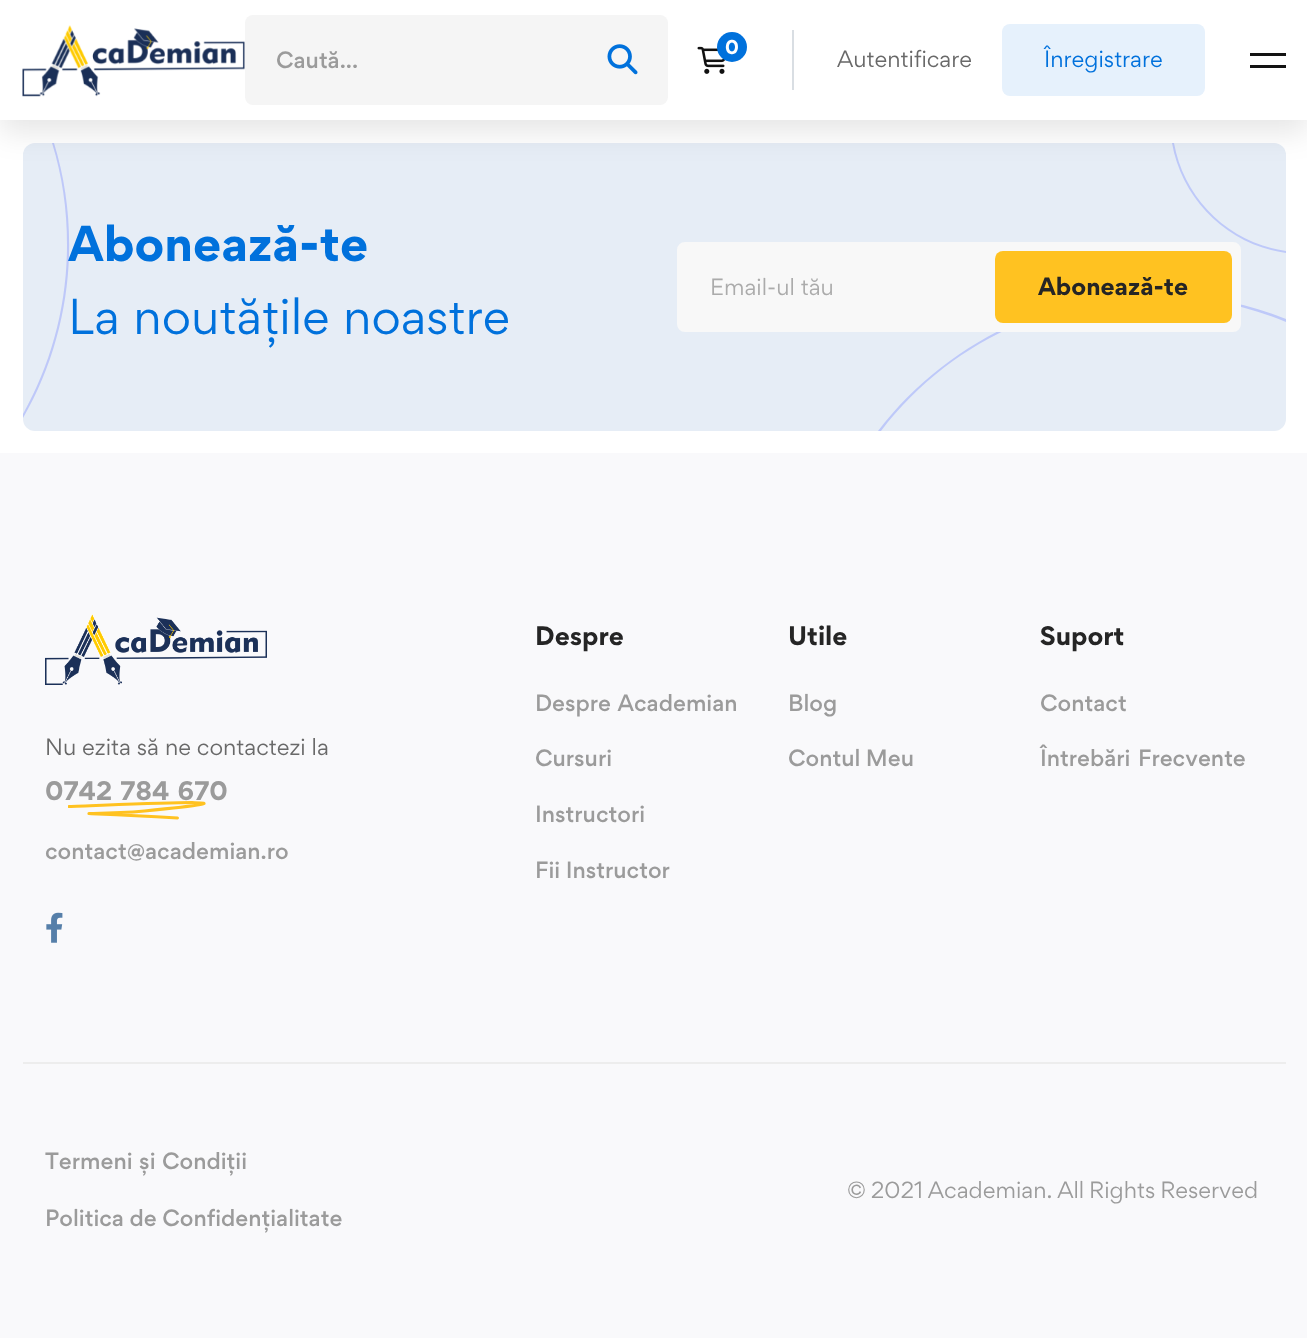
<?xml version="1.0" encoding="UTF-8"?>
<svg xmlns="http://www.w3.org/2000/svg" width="1307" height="1338">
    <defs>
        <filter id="blur1" x="-50%" y="-200%" width="200%" height="500%"><feGaussianBlur stdDeviation="15"/></filter>
        <clipPath id="clip1"><rect x="68" y="801" width="139" height="20"/></clipPath>
    </defs>
    <rect width="100%" height="100%" fill="#FFFFFF"/>
    <rect x="23" y="143" width="1263" height="288" rx="12" fill="#E6EDF6"/>
    <text x="68" y="261" font-family="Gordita" font-size="45" font-weight="700" fill="#0071DC">Abonează-te</text>
    <path d="M 54 143 C 82 234 71 335 23 418 V 414 C 51 364 67 306 67 245 C 67 209 62 175 52 143 Z" fill="#6275FF" fill-opacity="0.3"/>
    <path d="M 1286 253 C 1228 245 1182 200 1172 143 H 1174 C 1184 199 1229 243 1286 251 Z" fill="#BEC9F9"/>
    <rect x="0" y="12" width="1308" height="120" fill="#000000" fill-opacity="0.1" filter="url(#blur1)"/>
    <rect x="0" y="0" width="1307" height="120" fill="#FFFFFF"/>
    <image x="22" y="25" width="223" height="72" href="img_01.png"/>
    <rect x="245" y="15" width="423" height="90" rx="8" fill="#F5F5F5"/>
    <text x="276" y="68" font-family="Gordita" font-size="21" font-weight="500" fill="#9B9B9B">Caută...</text>
    <image x="607" y="44" width="31" height="31" href="img_02.png"/>
    <image x="697" y="46" width="28" height="28" href="img_03.png"/>
    <circle cx="732" cy="47" r="15" fill="#0071DC"/>
    <text x="725" y="54" font-family="Gordita" font-size="18" font-weight="700" fill="#FFFFFF">0</text>
    <rect x="792" y="30" width="2" height="60" fill="#D9DEE3"/>
    <text x="837" y="67" font-family="Gordita" font-size="21" fill="#696969">Autentificare</text>
    <rect x="1002" y="24" width="203" height="72" rx="8" fill="#E6F1FC"/>
    <text x="1044" y="67" font-family="Gordita" font-size="21" fill="#0071DC">Înregistrare</text>
    <rect x="1250" y="53" width="36" height="3" fill="#131313"/>
    <rect x="1250" y="65" width="36" height="3" fill="#131313"/>
    <text x="68" y="334" word-spacing="1" font-family="Gordita" font-size="45" fill="#0071DC">La noutățile noastre</text>
    <path d="M 1155 294 C 1042 294 942 348 878 431 H 881 C 976 307 1143 263 1286 322 V 319 C 1246 303 1201 294 1155 294 Z" fill="#BEC9F9"/>
    <rect x="678.5" y="243.5" width="561" height="87" rx="6.5" fill="#F8F8F8" stroke="#F8F8F8" stroke-width="3"/>
    <text x="710" y="295" font-family="Gordita" font-size="21" fill="#ABABAB">Email-ul tău</text>
    <rect x="995" y="251" width="237" height="72" rx="8" fill="#FFC221"/>
    <text x="1038" y="295" font-family="Gordita" font-size="22.5" font-weight="700" fill="#252525">Abonează-te</text>
    <rect x="0" y="453" width="1307" height="885" fill="#F9F9FB"/>
    <image x="45" y="614" width="222" height="71" href="img_04.png"/>
    <text x="45" y="755" font-family="Gordita" font-size="21" fill="#696969">Nu ezita să ne contactezi la</text>
    <text x="45" y="800" word-spacing="2" font-family="Gordita" font-size="24" font-weight="700" fill="#9B9B9B">0742 784 670</text>
    <g clip-path="url(#clip1)">
        <path d="M 69 806.5 C 106.5 805.5 300 796 144.5 811 C 88.5 816 41.5 810.5 177.5 818" fill="none" stroke="#FFC221" stroke-width="3" stroke-linecap="round"/>
    </g>
    <text x="45" y="859" font-family="Gordita" font-size="21" font-weight="500" fill="#9B9B9B">contact@academian.ro</text>
    <image x="46" y="912" width="17" height="31" href="img_05.png"/>
    <text x="535" y="645" font-family="Gordita" font-size="24" font-weight="700" fill="#252525">Despre</text>
    <text x="535" y="711" word-spacing="1" font-family="Gordita" font-size="21" font-weight="500" fill="#9B9B9B">Despre Academian</text>
    <text x="535" y="766" font-family="Gordita" font-size="21" font-weight="500" fill="#9B9B9B">Cursuri</text>
    <text x="535" y="822" font-family="Gordita" font-size="21" font-weight="500" fill="#9B9B9B">Instructori</text>
    <text x="535" y="878" font-family="Gordita" font-size="21" font-weight="500" fill="#9B9B9B">Fii Instructor</text>
    <text x="788" y="645" font-family="Gordita" font-size="24" font-weight="700" fill="#252525">Utile</text>
    <text x="788" y="711" font-family="Gordita" font-size="21" font-weight="500" fill="#9B9B9B">Blog</text>
    <text x="788" y="766" font-family="Gordita" font-size="21" font-weight="500" fill="#9B9B9B">Contul Meu</text>
    <text x="1040" y="645" font-family="Gordita" font-size="24" font-weight="700" fill="#252525">Suport</text>
    <text x="1040" y="711" font-family="Gordita" font-size="21" font-weight="500" fill="#9B9B9B">Contact</text>
    <text x="1040" y="766" word-spacing="2" font-family="Gordita" font-size="21" font-weight="500" fill="#9B9B9B">Întrebări Frecvente</text>
    <rect x="23" y="1062" width="1263" height="2" fill="#EDEDED"/>
    <text x="45" y="1169" word-spacing="1" font-family="Gordita" font-size="21" font-weight="500" fill="#9B9B9B">Termeni și Condiții</text>
    <text x="45" y="1226" font-family="Gordita" font-size="21" font-weight="500" fill="#9B9B9B">Politica de Confidențialitate</text>
    <text x="847" y="1198" word-spacing="-1" font-family="Gordita" font-size="21" fill="#9B9B9B">© 2021 Academian. All Rights Reserved</text>
</svg>
